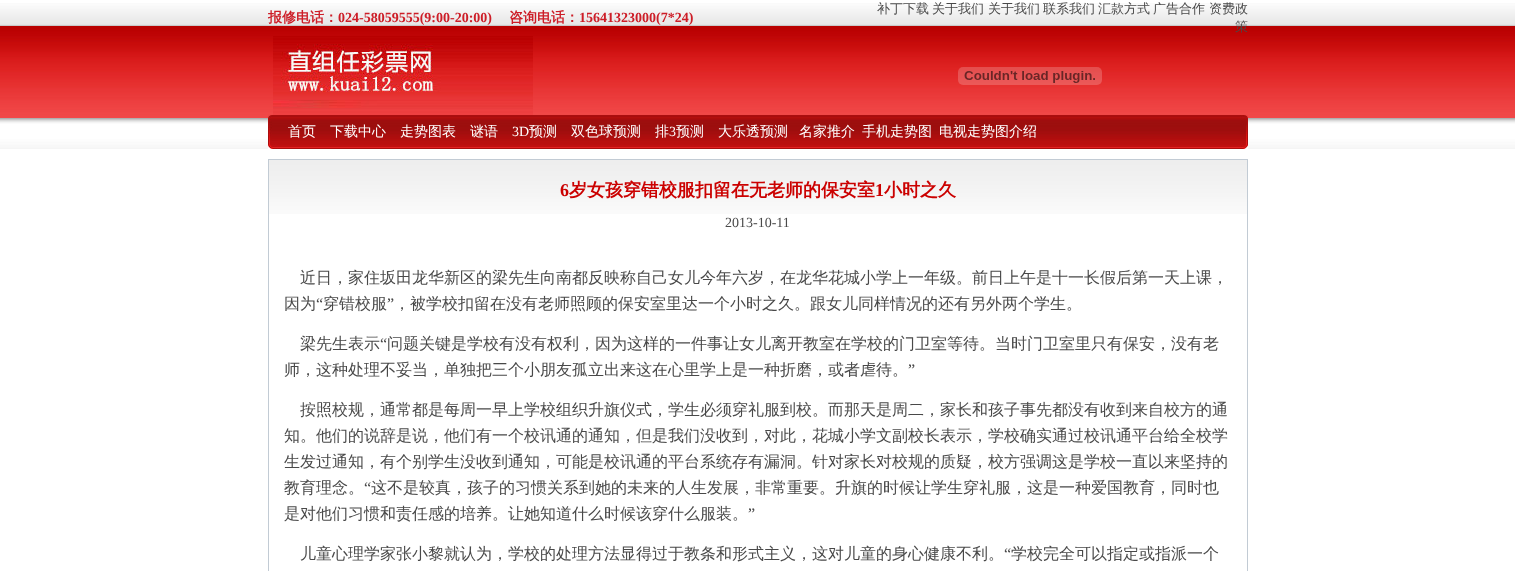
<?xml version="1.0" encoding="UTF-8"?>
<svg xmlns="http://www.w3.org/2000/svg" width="1515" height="571">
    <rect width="100%" height="100%" fill="#FFFFFF"/>
    <image x="0" y="3" width="1515" height="146" href="img_01.png"/>
    <text x="268" y="22" font-family="WenQuanYi Zen Hei" font-size="14" font-weight="700" fill="#CD1D27">报修电话：</text>
    <text x="338" y="22" font-family="Liberation Serif" font-size="14" font-weight="700" fill="#CD1D27">024-58059555(9:00-20:00)</text>
    <text x="509" y="22" font-family="WenQuanYi Zen Hei" font-size="14" font-weight="700" fill="#CD1D27">咨询电话：</text>
    <text x="579" y="22" font-family="Liberation Serif" font-size="14" font-weight="700" fill="#CD1D27">15641323000(7*24)</text>
    <text x="877" y="13" font-family="WenQuanYi Zen Hei" font-size="13" font-weight="500" fill="#494949">补丁下载</text>
    <text x="932" y="13" font-family="WenQuanYi Zen Hei" font-size="13" font-weight="500" fill="#494949">关于我们</text>
    <text x="988" y="13" font-family="WenQuanYi Zen Hei" font-size="13" font-weight="500" fill="#494949">关于我们</text>
    <text x="1043" y="13" font-family="WenQuanYi Zen Hei" font-size="13" font-weight="500" fill="#494949">联系我们</text>
    <text x="1098" y="13" font-family="WenQuanYi Zen Hei" font-size="13" font-weight="500" fill="#494949">汇款方式</text>
    <text x="1153" y="13" font-family="WenQuanYi Zen Hei" font-size="13" font-weight="500" fill="#494949">广告合作</text>
    <text x="1209" y="13" font-family="WenQuanYi Zen Hei" font-size="13" font-weight="500" fill="#494949">资费政</text>
    <text x="1235" y="31" font-family="WenQuanYi Zen Hei" font-size="13" font-weight="500" fill="#494949">策</text>
    <image x="273" y="36" width="260" height="79" href="img_02.png"/>
    <image x="958" y="67" width="144" height="18" href="img_03.png"/>
    <image x="268" y="115" width="10" height="34" href="img_04.png"/>
    <image x="278" y="115" width="960" height="34" href="img_05.png"/>
    <text x="288" y="136" font-family="WenQuanYi Zen Hei" font-size="14" font-weight="500" fill="#FFFFFF">首页</text>
    <text x="330" y="136" font-family="WenQuanYi Zen Hei" font-size="14" font-weight="500" fill="#FFFFFF">下载中心</text>
    <text x="400" y="136" font-family="WenQuanYi Zen Hei" font-size="14" font-weight="500" fill="#FFFFFF">走势图表</text>
    <text x="470" y="136" font-family="WenQuanYi Zen Hei" font-size="14" font-weight="500" fill="#FFFFFF">谜语</text>
    <text x="512" y="136" font-family="Liberation Serif" font-size="14" fill="#FFFFFF">3D</text>
    <text x="529" y="136" font-family="WenQuanYi Zen Hei" font-size="14" font-weight="500" fill="#FFFFFF">预测</text>
    <text x="571" y="136" font-family="WenQuanYi Zen Hei" font-size="14" font-weight="500" fill="#FFFFFF">双色球预测</text>
    <text x="655" y="136" font-family="WenQuanYi Zen Hei" font-size="14" font-weight="500" fill="#FFFFFF">排</text>
    <text x="669" y="136" font-family="Liberation Serif" font-size="14" fill="#FFFFFF">3</text>
    <text x="676" y="136" font-family="WenQuanYi Zen Hei" font-size="14" font-weight="500" fill="#FFFFFF">预测</text>
    <text x="718" y="136" font-family="WenQuanYi Zen Hei" font-size="14" font-weight="500" fill="#FFFFFF">大乐透预测</text>
    <text x="799" y="136" font-family="WenQuanYi Zen Hei" font-size="14" font-weight="500" fill="#FFFFFF">名家推介</text>
    <text x="862" y="136" font-family="WenQuanYi Zen Hei" font-size="14" font-weight="500" fill="#FFFFFF">手机走势图</text>
    <text x="939" y="136" font-family="WenQuanYi Zen Hei" font-size="14" font-weight="500" fill="#FFFFFF">电视走势图介绍</text>
    <image x="1238" y="115" width="10" height="34" href="img_06.png"/>
    <image x="269" y="160" width="978" height="54" href="img_07.png"/>
    <rect x="268.5" y="159.5" width="979" height="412" fill="none" stroke="#C2CBD4"/>
    <text x="560" y="196" font-family="Liberation Serif" font-size="18" font-weight="700" fill="#CB0100">6</text>
    <text x="569" y="196" font-family="WenQuanYi Zen Hei" font-size="18" font-weight="700" fill="#CB0100">岁女孩穿错校服扣留在无老师的保安室</text>
    <text x="875" y="196" font-family="Liberation Serif" font-size="18" font-weight="700" fill="#CB0100">1</text>
    <text x="884" y="196" font-family="WenQuanYi Zen Hei" font-size="18" font-weight="700" fill="#CB0100">小时之久</text>
    <text x="725" y="227" font-family="Liberation Serif" font-size="14" fill="#494949">2013-10-11</text>
    <text x="300" y="283" font-family="WenQuanYi Zen Hei" font-size="16" font-weight="500" fill="#494949">近日，家住坂田龙华新区的梁先生向南都反映称自己女儿今年六岁，在龙华花城小学上一年级。前日上午是十一长假后第一天上课，</text>
    <text x="284" y="309" font-family="WenQuanYi Zen Hei" font-size="16" font-weight="500" fill="#494949">因为</text>
    <text x="316" y="309" font-family="Liberation Serif" font-size="16" fill="#494949">“</text>
    <text x="323" y="309" font-family="WenQuanYi Zen Hei" font-size="16" font-weight="500" fill="#494949">穿错校服</text>
    <text x="387" y="309" font-family="Liberation Serif" font-size="16" fill="#494949">”</text>
    <text x="394" y="309" font-family="WenQuanYi Zen Hei" font-size="16" font-weight="500" fill="#494949">，被学校扣留在没有老师照顾的保安室里达一个小时之久。跟女儿同样情况的还有另外两个学生。</text>
    <text x="300" y="349" font-family="WenQuanYi Zen Hei" font-size="16" font-weight="500" fill="#494949">梁先生表示</text>
    <text x="380" y="349" font-family="Liberation Serif" font-size="16" fill="#494949">“</text>
    <text x="387" y="349" font-family="WenQuanYi Zen Hei" font-size="16" font-weight="500" fill="#494949">问题关键是学校有没有权利，因为这样的一件事让女儿离开教室在学校的门卫室等待。当时门卫室里只有保安，没有老</text>
    <text x="284" y="375" font-family="WenQuanYi Zen Hei" font-size="16" font-weight="500" fill="#494949">师，这种处理不妥当，单独把三个小朋友孤立出来这在心里学上是一种折磨，或者虐待。</text>
    <text x="908" y="375" font-family="Liberation Serif" font-size="16" fill="#494949">”</text>
    <text x="300" y="415" font-family="WenQuanYi Zen Hei" font-size="16" font-weight="500" fill="#494949">按照校规，通常都是每周一早上学校组织升旗仪式，学生必须穿礼服到校。而那天是周二，家长和孩子事先都没有收到来自校方的通</text>
    <text font-family="WenQuanYi Zen Hei" font-size="16" font-weight="500" fill="#494949">
        <tspan x="284" y="441">知。他们的说辞是说，他们有一个校讯通的通知，但是我们没收到，对此，花城小学文副校长表示，学校确实通过校讯通平台给全校学</tspan>
        <tspan x="284" y="467">生发过通知，有个别学生没收到通知，可能是校讯通的平台系统存有漏洞。针对家长对校规的质疑，校方强调这是学校一直以来坚持的</tspan>
        <tspan x="284" y="493">教育理念。</tspan>
    </text>
    <text x="364" y="493" font-family="Liberation Serif" font-size="16" fill="#494949">“</text>
    <text x="371" y="493" font-family="WenQuanYi Zen Hei" font-size="16" font-weight="500" fill="#494949">这不是较真，孩子的习惯关系到她的未来的人生发展，非常重要。升旗的时候让学生穿礼服，这是一种爱国教育，同时也</text>
    <text x="284" y="519" font-family="WenQuanYi Zen Hei" font-size="16" font-weight="500" fill="#494949">是对他们习惯和责任感的培养。让她知道什么时候该穿什么服装。</text>
    <text x="748" y="519" font-family="Liberation Serif" font-size="16" fill="#494949">”</text>
    <text x="300" y="559" font-family="WenQuanYi Zen Hei" font-size="16" font-weight="500" fill="#494949">儿童心理学家张小黎就认为，学校的处理方法显得过于教条和形式主义，这对儿童的身心健康不利。</text>
    <text x="1004" y="559" font-family="Liberation Serif" font-size="16" fill="#494949">“</text>
    <text x="1011" y="559" font-family="WenQuanYi Zen Hei" font-size="16" font-weight="500" fill="#494949">学校完全可以指定或指派一个</text>
</svg>
